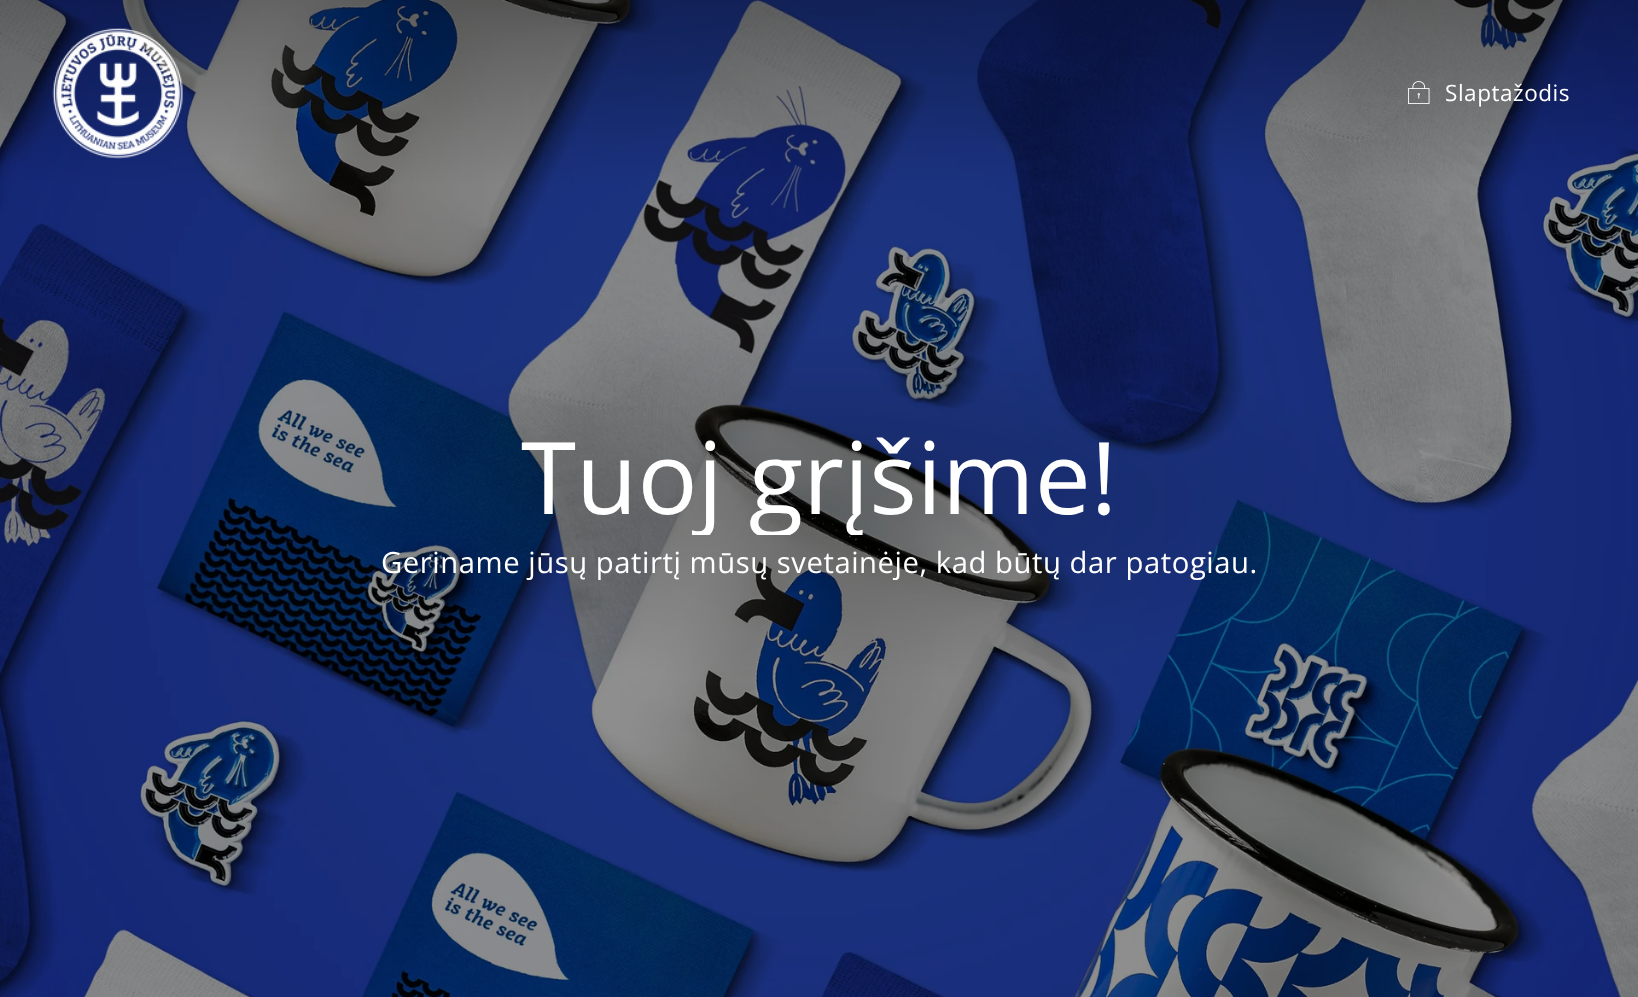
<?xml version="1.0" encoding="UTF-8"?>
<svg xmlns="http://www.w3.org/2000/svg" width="1638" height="997">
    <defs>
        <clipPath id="clip1"><rect x="521" y="415" width="597" height="120"/></clipPath>
    </defs>
    <rect width="100%" height="100%" fill="#FFFFFF"/>
    <image x="0" y="0" width="1638" height="997" href="img_03.png"/>
    <image x="52" y="28" width="131" height="131" href="img_01.png"/>
    <image x="1408" y="81" width="22" height="23" href="img_02.png"/>
    <text x="1445" y="101" font-family="Open Sans" font-size="22.5" letter-spacing="0.55" fill="#FFFFFF">Slaptažodis</text>
    <g clip-path="url(#clip1)">
        <text x="521" y="514" font-family="Open Sans" font-size="100" fill="#FFFFFF">Tuoj grįšime!</text>
    </g>
    <text x="381" y="573" font-family="Open Sans" font-size="29.25" letter-spacing="0.55" fill="#FFFFFF">Geriname jūsų patirtį mūsų svetainėje, kad būtų dar patogiau.</text>
</svg>
